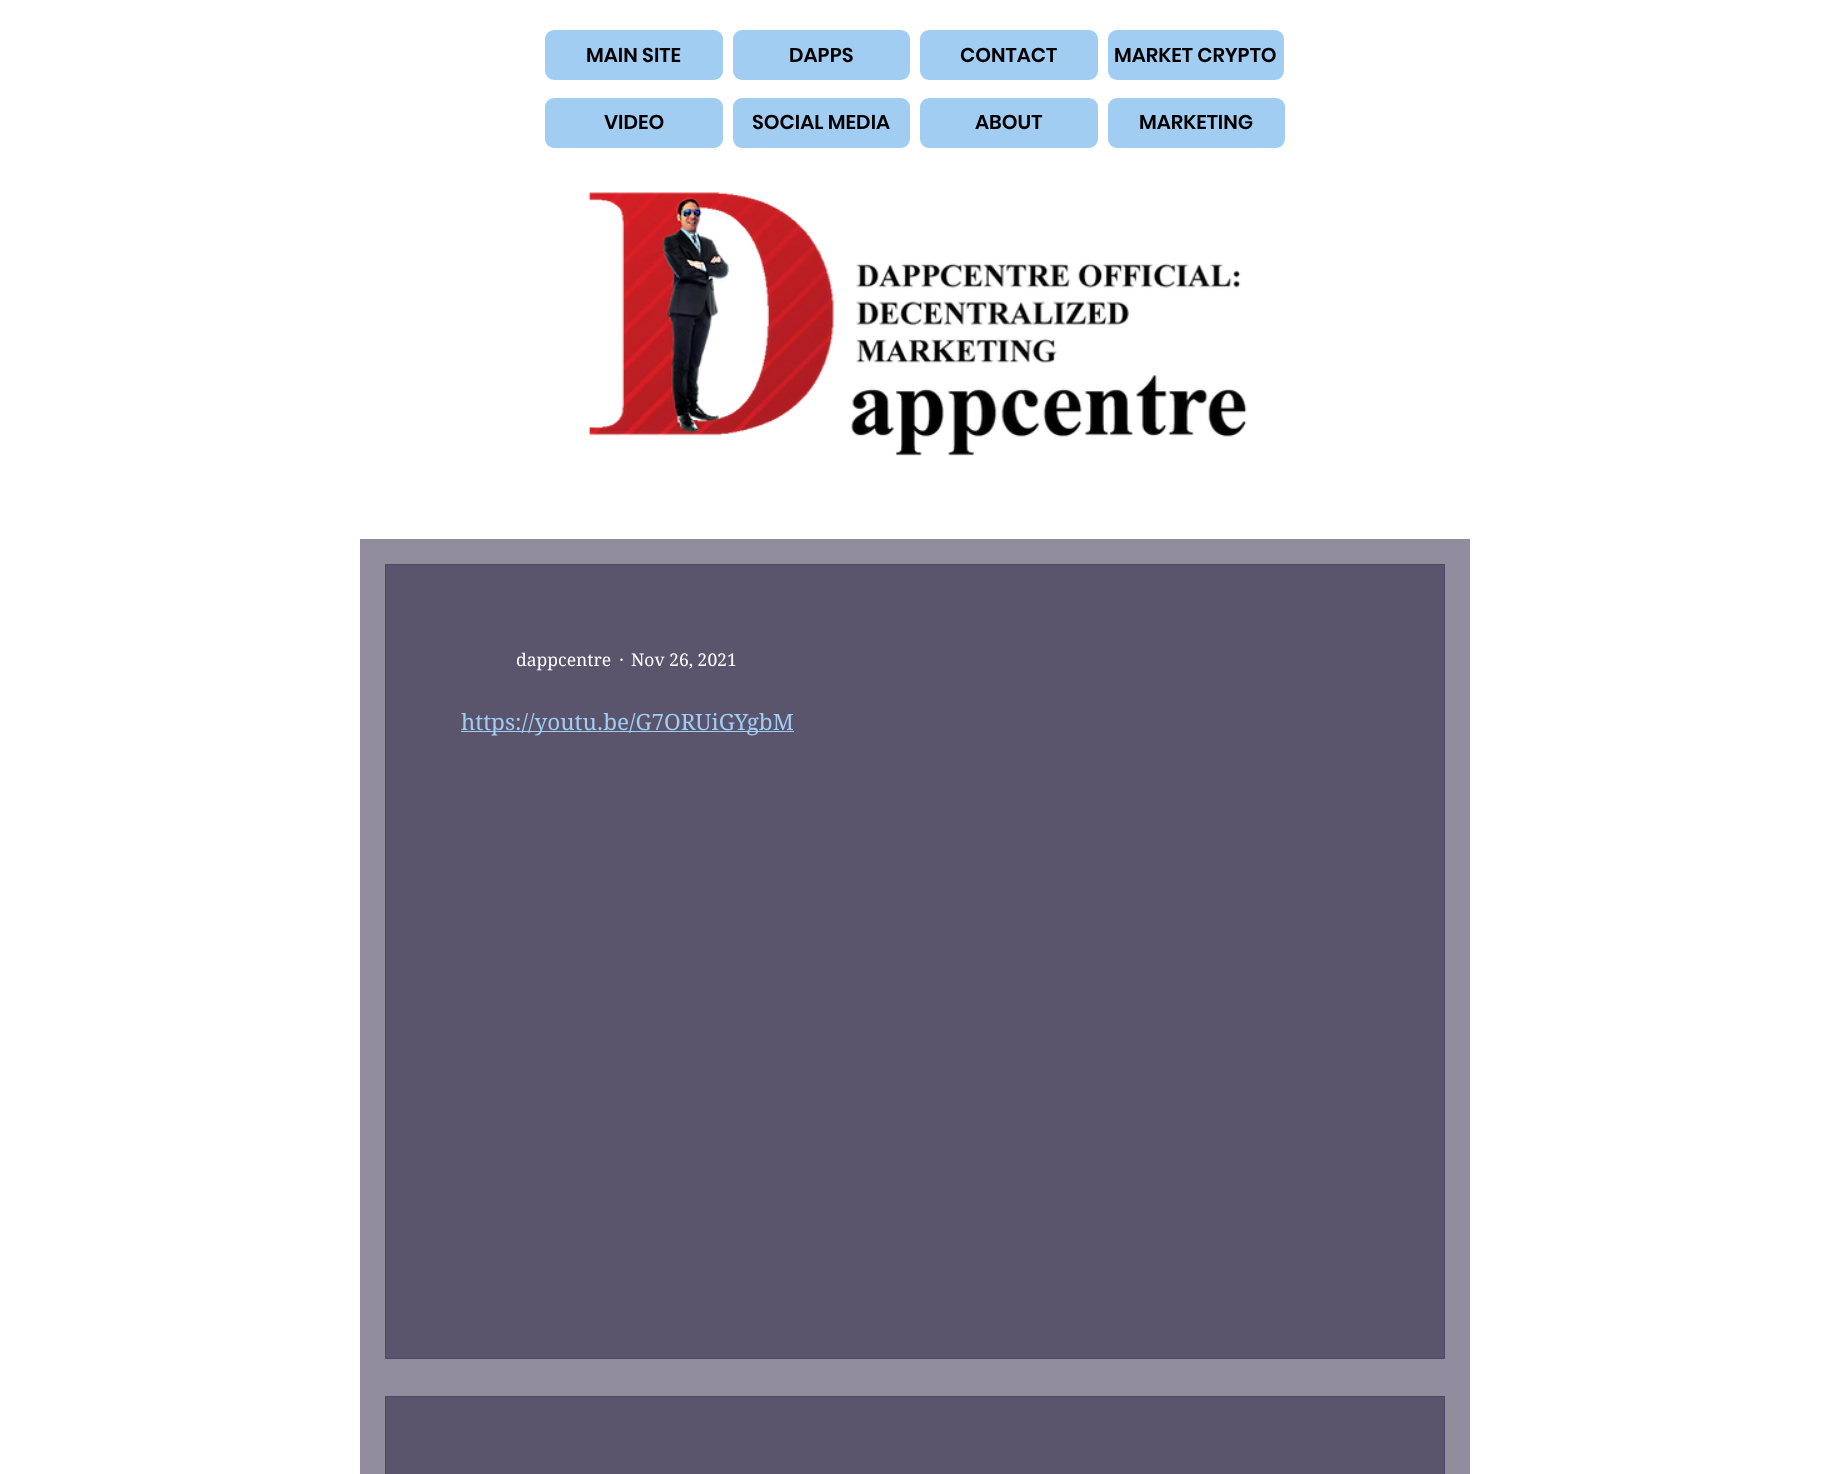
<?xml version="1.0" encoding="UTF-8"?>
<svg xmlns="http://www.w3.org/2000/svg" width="1829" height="1474">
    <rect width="100%" height="100%" fill="#FFFFFF"/>
    <rect x="545" y="30" width="178" height="50" rx="9" fill="#A2CDF2"/>
    <text x="586" y="62" font-family="Poppins" font-size="20" font-weight="600" fill="#000000">MAIN SITE</text>
    <rect x="733" y="30" width="177" height="50" rx="9" fill="#A2CDF2"/>
    <text x="789" y="62" font-family="Poppins" font-size="20" font-weight="600" fill="#000000">DAPPS</text>
    <rect x="920" y="30" width="178" height="50" rx="9" fill="#A2CDF2"/>
    <text x="960" y="62" font-family="Poppins" font-size="20" font-weight="600" fill="#000000">CONTACT</text>
    <rect x="1108" y="30" width="176" height="50" rx="9" fill="#A2CDF2"/>
    <text x="1114" y="62" font-family="Poppins" font-size="20" font-weight="600" fill="#000000">MARKET CRYPTO</text>
    <rect x="545" y="98" width="178" height="50" rx="9" fill="#A2CDF2"/>
    <text x="604" y="129" font-family="Poppins" font-size="20" font-weight="600" fill="#000000">VIDEO</text>
    <rect x="733" y="98" width="177" height="50" rx="9" fill="#A2CDF2"/>
    <text x="752" y="129" font-family="Poppins" font-size="20" font-weight="600" fill="#000000">SOCIAL MEDIA</text>
    <rect x="920" y="98" width="178" height="50" rx="9" fill="#A2CDF2"/>
    <text x="975" y="129" font-family="Poppins" font-size="20" font-weight="600" fill="#000000">ABOUT</text>
    <rect x="1108" y="98" width="177" height="50" rx="9" fill="#A2CDF2"/>
    <text x="1139" y="129" font-family="Poppins" font-size="20" font-weight="600" fill="#000000">MARKETING</text>
    <image x="588" y="192" width="659" height="264" href="img_01.png"/>
    <rect x="360" y="539" width="1110" height="935" fill="#918D9D"/>
    <rect x="385.5" y="564.5" width="1059" height="794" fill="#5A546D" stroke="#514673"/>
    <text x="516" y="666" font-family="'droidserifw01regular'" font-size="17.5" fill="#FFFFFF">dappcentre</text>
    <text x="619" y="666" font-family="'droidserifw01regular'" font-size="17.5" fill="#FFFFFF">·</text>
    <text x="631" y="666" font-family="'droidserifw01regular'" font-size="17.5" fill="#FFFFFF">Nov 26, 2021</text>
    <rect x="461" y="731" width="333" height="1" fill="#A2CDF2"/>
    <text x="461" y="730" font-family="'droidserifw01regular'" font-size="22.5" fill="#A2CDF2">https://youtu.be/G7ORUiGYgbM</text>
    <rect x="385.5" y="1396.5" width="1059" height="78" fill="#5A546C" stroke="#514672"/>
</svg>
